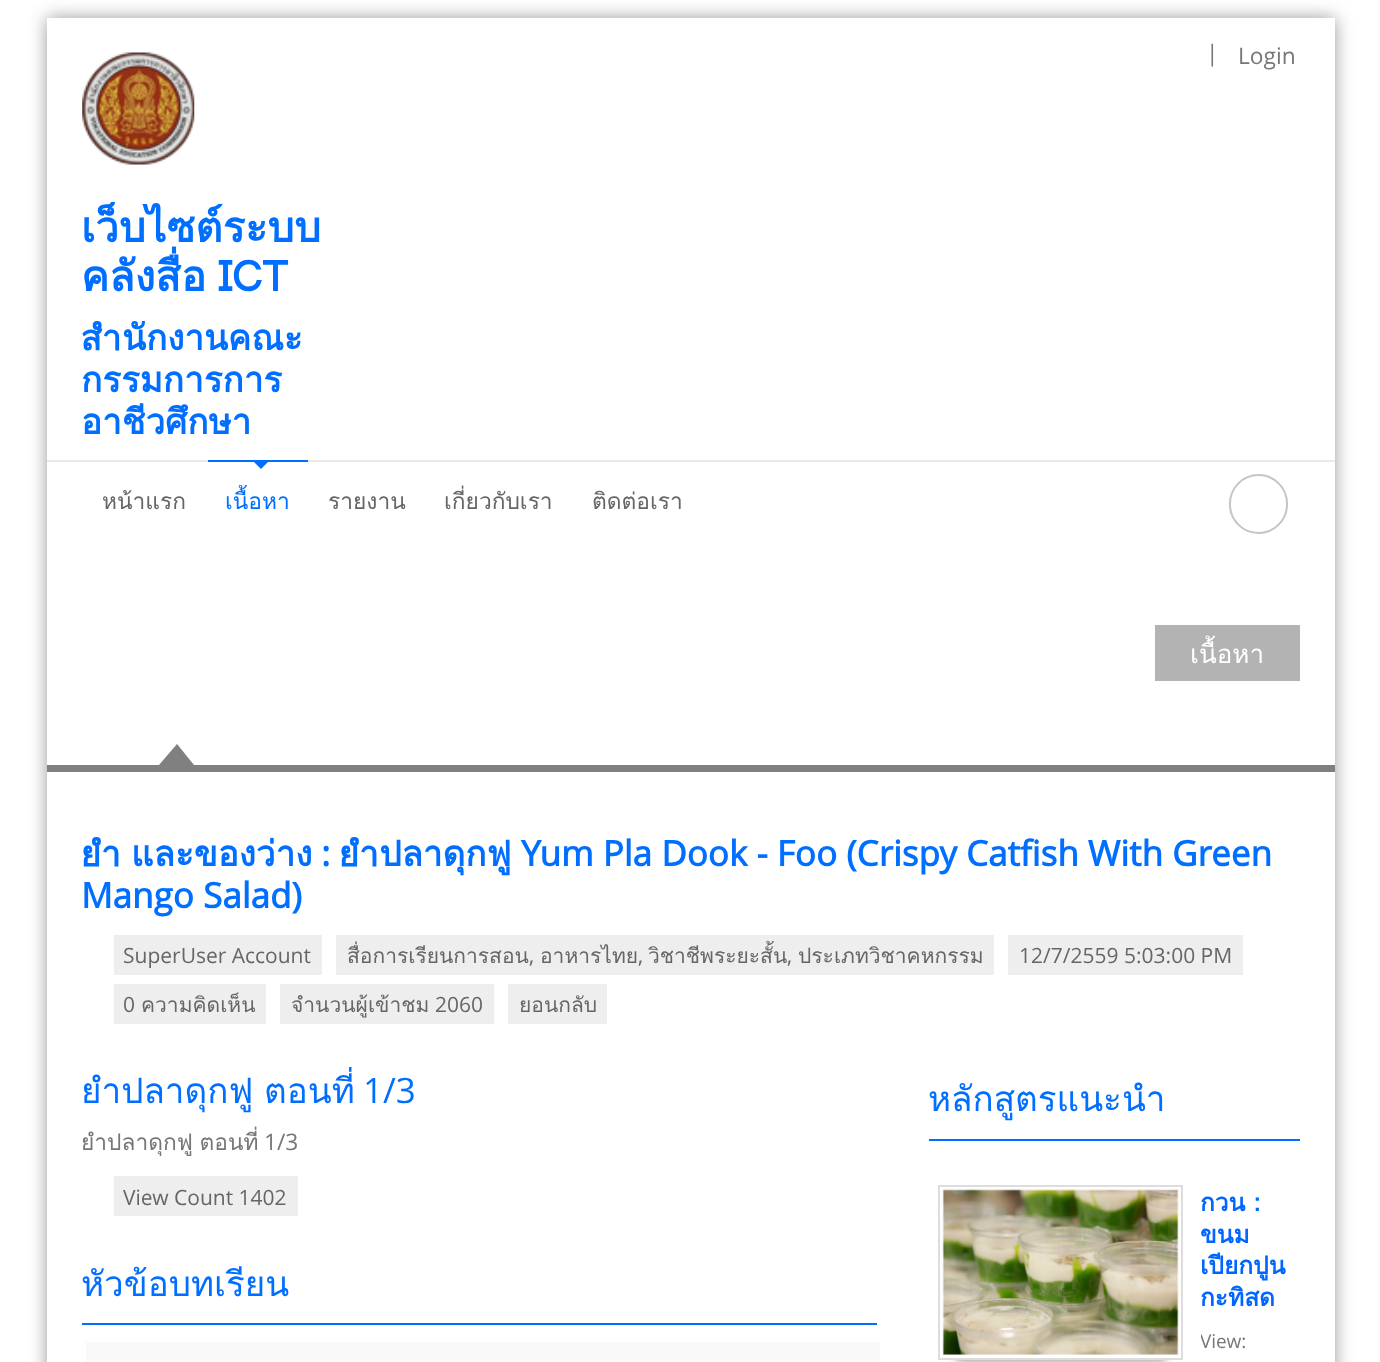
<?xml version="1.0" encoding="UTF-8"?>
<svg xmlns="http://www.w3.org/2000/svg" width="1380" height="1362">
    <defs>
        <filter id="blur1" x="-50%" y="-200%" width="200%" height="500%"><feGaussianBlur stdDeviation="9"/></filter>
        <filter id="blur2" x="-50%" y="-200%" width="200%" height="500%"><feGaussianBlur stdDeviation="4.5"/></filter>
        <clipPath id="clip1"><rect x="1201" y="1185" width="91" height="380"/></clipPath>
    </defs>
    <rect width="100%" height="100%" fill="#FFFFFF"/>
    <rect x="47" y="18" width="1288" height="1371" fill="#000000" fill-opacity="0.4" filter="url(#blur1)"/>
    <rect x="47" y="18" width="1288" height="1344" fill="#FFFFFF"/>
    <text x="1206" y="61" font-family="Open Sans" font-size="22.75" fill="#777777">|</text>
    <text x="1238" y="64" font-family="Open Sans" font-size="22.75" fill="#777777">Login</text>
    <image x="82" y="52" width="113" height="113" href="img_01.png"/>
    <text font-family="Loma" font-size="42" font-weight="700" fill="#006FFF">
        <tspan x="81" y="242">เว็บไซต์ระบบ</tspan>
        <tspan x="81" y="291" word-spacing="-2">คลังสื่อ ICT</tspan>
    </text>
    <text font-family="Loma" font-size="35" font-weight="700" fill="#006FFF">
        <tspan x="81" y="350">สำนักงานคณะ</tspan>
        <tspan x="81" y="392">กรรมการการ</tspan>
        <tspan x="81" y="434">อาชีวศึกษา</tspan>
    </text>
    <rect x="47" y="460" width="1288" height="2" fill="#EAEAEA"/>
    <text x="102" y="509" font-family="Loma" font-size="22.75" fill="#666666">หน้าแรก</text>
    <rect x="208" y="460" width="100" height="2" fill="#006FFF"/>
    <path d="M 254 462 H 268 L 261 469 Z" fill="#006FFF"/>
    <text x="225" y="509" font-family="Loma" font-size="22.75" fill="#006FFF">เนื้อหา</text>
    <text x="328" y="509" font-family="Loma" font-size="22.75" fill="#666666">รายงาน</text>
    <text x="444" y="509" font-family="Loma" font-size="22.75" fill="#666666">เกี่ยวกับเรา</text>
    <text x="592" y="509" font-family="Loma" font-size="22.75" fill="#666666">ติดต่อเรา</text>
    <rect x="1230" y="475" width="57" height="58" rx="28.5" fill="none" stroke="#C5C5C5" stroke-width="2"/>
    <rect x="47" y="765" width="1288" height="7" fill="#808080"/>
    <rect x="1155" y="625" width="145" height="56" fill="#B3B3B3"/>
    <text x="1190" y="663" font-family="Loma" font-size="26" fill="#FFFFFF">เนื้อหา</text>
    <path d="M 194 765 H 159 L 177 744 Z" fill="#808080"/>
    <text x="81" y="866" font-family="Loma" font-size="35" font-weight="700" fill="#006FFF">ยำ</text>
    <text x="131" y="866" font-family="Loma" font-size="35" font-weight="700" fill="#006FFF">และของว่าง</text>
    <text x="321" y="866" font-family="Open Sans" font-size="35" font-weight="700" fill="#006FFF">:</text>
    <text x="339" y="866" font-family="Loma" font-size="35" font-weight="700" fill="#006FFF">ยำปลาดุกฟู</text>
    <text x="521" y="866" font-family="Open Sans" font-size="35" font-weight="700" fill="#006FFF">Yum Pla Dook - Foo (Crispy Catfish With Green</text>
    <text x="81" y="908" font-family="Open Sans" font-size="35" font-weight="700" fill="#006FFF">Mango Salad)</text>
    <rect x="114" y="935" width="208" height="40" fill="#EEEEEE"/>
    <text x="123" y="963" font-family="Open Sans" font-size="21" fill="#666666">SuperUser Account</text>
    <rect x="336" y="935" width="658" height="40" fill="#EEEEEE"/>
    <text x="347" y="963" font-family="Loma" font-size="21" fill="#666666">สื่อการเรียนการสอน</text>
    <text x="529" y="963" font-family="Open Sans" font-size="21" fill="#666666">,</text>
    <text x="540" y="963" font-family="Loma" font-size="21" fill="#666666">อาหารไทย</text>
    <text x="638" y="963" font-family="Open Sans" font-size="21" fill="#666666">,</text>
    <text x="648" y="963" font-family="Loma" font-size="21" fill="#666666">วิชาชีพระยะสั้น</text>
    <text x="798" y="963" font-family="Loma" font-size="21" fill="#666666">ประเภทวิชาคหกรรม</text>
    <text x="787" y="963" font-family="Open Sans" font-size="21" fill="#666666">,</text>
    <rect x="1008" y="935" width="235" height="40" fill="#EEEEEE"/>
    <text x="1019" y="963" font-family="Open Sans" font-size="21" fill="#666666">12/7/2559 5:03:00 PM</text>
    <rect x="114" y="984" width="152" height="40" fill="#EEEEEE"/>
    <text x="123" y="1012" font-family="Open Sans" font-size="21" fill="#666666">0</text>
    <text x="141" y="1012" font-family="Loma" font-size="21" fill="#666666">ความคิดเห็น</text>
    <rect x="280" y="984" width="214" height="40" fill="#EEEEEE"/>
    <text x="291" y="1012" font-family="Loma" font-size="21" fill="#666666">จำนวนผู้เข้าชม</text>
    <text x="435" y="1012" font-family="Open Sans" font-size="21" fill="#666666">2060</text>
    <rect x="508" y="984" width="99" height="40" fill="#EEEEEE"/>
    <text x="519" y="1012" font-family="Loma" font-size="21" fill="#666666">ยอนกลับ</text>
    <text x="81" y="1103" word-spacing="-1" font-family="Loma" font-size="35" fill="#006FFF">ยำปลาดุกฟู ตอนที่</text>
    <text x="363" y="1103" font-family="Open Sans" font-size="35" fill="#006FFF">1/3</text>
    <text x="81" y="1150" word-spacing="-1" font-family="Loma" font-size="22.75" fill="#777777">ยำปลาดุกฟู ตอนที่</text>
    <text x="264" y="1150" font-family="Open Sans" font-size="22.75" fill="#777777">1/3</text>
    <rect x="114" y="1176" width="184" height="40" fill="#EEEEEE"/>
    <text x="123" y="1205" font-family="Open Sans" font-size="21" fill="#666666">View Count 1402</text>
    <rect x="82" y="1323" width="795" height="2" fill="#006FFF"/>
    <text x="81" y="1296" font-family="Loma" font-size="35" fill="#006FFF">หัวข้อบทเรียน</text>
    <rect x="86" y="1342" width="794" height="20" fill="#F9F9F9"/>
    <rect x="929" y="1139" width="371" height="2" fill="#006FFF"/>
    <text x="928" y="1111" font-family="Loma" font-size="35" fill="#006FFF">หลักสูตรแนะนำ</text>
    <rect x="956" y="1220" width="210" height="140" fill="#000000" fill-opacity="0.5" filter="url(#blur2)"/>
    <rect x="947" y="1211" width="228" height="147" fill="#FFFFFF"/>
    <rect x="939" y="1186" width="243" height="173" fill="none" stroke="#DDDDDD" stroke-width="2"/>
    <image x="942" y="1189" width="237" height="166" href="img_02.png"/>
    <text x="1200" y="1211" font-family="Loma" font-size="24.5" font-weight="700" fill="#0066FF">กวน :</text>
    <g clip-path="url(#clip1)">
        <text font-family="Loma" font-size="24.5" font-weight="700" fill="#0066FF">
            <tspan x="1200" y="1243">ขนม</tspan>
            <tspan x="1200" y="1274">เปียกปูน</tspan>
        </text>
    </g>
    <text x="1200" y="1306" font-family="Loma" font-size="24.5" font-weight="700" fill="#0066FF">กะทิสด</text>
    <g clip-path="url(#clip1)">
        <text x="1200" y="1348" font-family="Open Sans" font-size="19" fill="#777777">View:</text>
    </g>
</svg>
